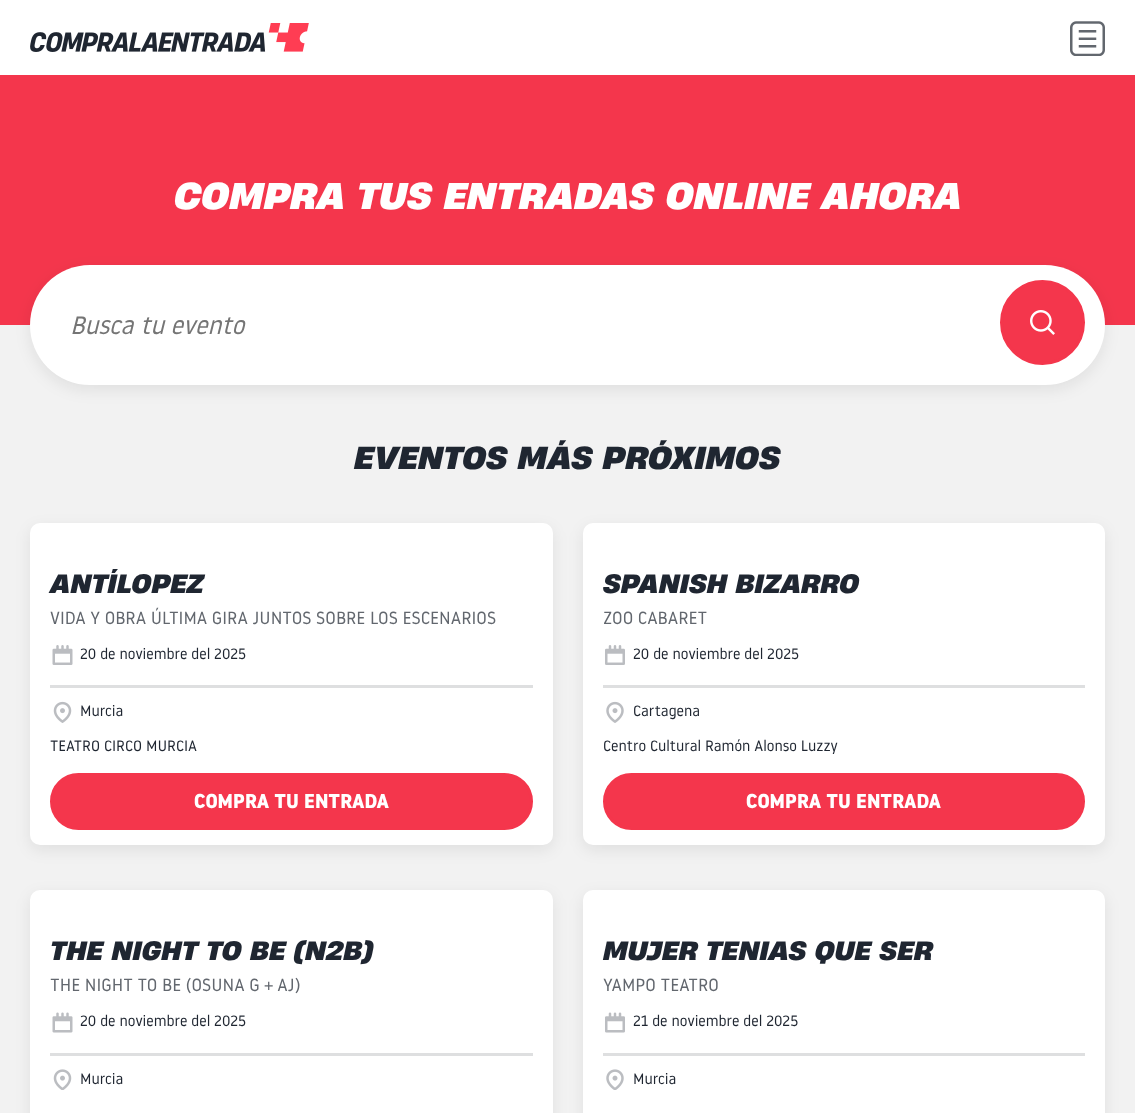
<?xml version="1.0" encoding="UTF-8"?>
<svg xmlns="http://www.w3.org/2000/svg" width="1135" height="1113">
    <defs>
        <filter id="blur1" x="-50%" y="-200%" width="200%" height="500%"><feGaussianBlur stdDeviation="7.5"/></filter>
    </defs>
    <rect width="100%" height="100%" fill="#F2F2F2"/>
    <rect x="0" y="0" width="1135" height="75" fill="#FFFFFF"/>
    <image x="30" y="23" width="279" height="29" href="img_01.png"/>
    <image x="1070" y="21" width="35" height="35" href="img_02.png"/>
    <rect x="0" y="75" width="1135" height="250" fill="#F4364C"/>
    <text x="174" y="209" font-family="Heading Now" font-size="35" font-weight="700" font-style="italic" fill="#FFFFFF">COMPRA TUS ENTRADAS ONLINE AHORA</text>
    <rect x="30" y="270" width="1075" height="120" rx="60" fill="#000000" fill-opacity="0.08" filter="url(#blur1)"/>
    <rect x="30" y="265" width="1075" height="120" rx="60" fill="#FFFFFF"/>
    <text x="70" y="334" font-family="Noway" font-size="25" font-style="italic" fill="#757575">Busca tu evento</text>
    <circle cx="1042.5" cy="322.5" r="41" fill="#F4364C" stroke="#F4364C" stroke-width="3"/>
    <image x="1030" y="310" width="25" height="25" href="img_03.png"/>
    <text x="354" y="469" font-family="Heading Now" font-size="30" font-weight="700" font-style="italic" fill="#1F2631">EVENTOS MÁS PRÓXIMOS</text>
    <rect x="30" y="528" width="523" height="322" rx="10" fill="#000000" fill-opacity="0.08" filter="url(#blur1)"/>
    <rect x="30" y="523" width="523" height="322" rx="10" fill="#FFFFFF"/>
    <text x="50" y="593" font-family="Heading Now" font-size="25" font-weight="700" font-style="italic" fill="#1F2631">ANTÍLOPEZ</text>
    <text x="50" y="624" font-family="Noway" font-size="17.5" fill="#62676E">VIDA Y OBRA ÚLTIMA GIRA JUNTOS SOBRE LOS ESCENARIOS</text>
    <image x="52" y="645" width="21" height="20" href="img_04.png"/>
    <text x="80" y="659" font-family="Noway" font-size="15" fill="#1F2631">20 de noviembre del 2025</text>
    <rect x="50" y="685" width="483" height="3" fill="#DEDFE0"/>
    <image x="53" y="701" width="19" height="22" href="img_05.png"/>
    <text x="80" y="716" font-family="Noway" font-size="15" fill="#1F2631">Murcia</text>
    <text x="50" y="751" font-family="Noway" font-size="15" fill="#1F2631">TEATRO CIRCO MURCIA</text>
    <rect x="51.5" y="774.5" width="480" height="54" rx="27" fill="#F4364C" stroke="#F4364C" stroke-width="3"/>
    <text x="194" y="808" font-family="Noway" font-size="20" font-weight="700" fill="#FFFFFF">COMPRA TU ENTRADA</text>
    <rect x="30" y="895" width="523" height="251" rx="10" fill="#000000" fill-opacity="0.08" filter="url(#blur1)"/>
    <rect x="30" y="890" width="523" height="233" rx="10" fill="#FFFFFF"/>
    <text x="50" y="960" font-family="Heading Now" font-size="25" font-weight="700" font-style="italic" fill="#1F2631">THE NIGHT TO BE (N2B)</text>
    <text x="50" y="991" font-family="Noway" font-size="17.5" fill="#62676E">THE NIGHT TO BE (OSUNA G + AJ)</text>
    <image x="52" y="1012" width="21" height="21" href="img_06.png"/>
    <text x="80" y="1026" font-family="Noway" font-size="15" fill="#1F2631">20 de noviembre del 2025</text>
    <rect x="50" y="1053" width="483" height="3" fill="#DEDFE0"/>
    <image x="53" y="1069" width="19" height="21" href="img_07.png"/>
    <text x="80" y="1084" font-family="Noway" font-size="15" fill="#1F2631">Murcia</text>
    <rect x="583" y="528" width="522" height="322" rx="10" fill="#000000" fill-opacity="0.08" filter="url(#blur1)"/>
    <rect x="583" y="523" width="522" height="322" rx="10" fill="#FFFFFF"/>
    <text x="603" y="593" font-family="Heading Now" font-size="25" font-weight="700" font-style="italic" fill="#1F2631">SPANISH BIZARRO</text>
    <text x="603" y="624" font-family="Noway" font-size="17.5" fill="#62676E">ZOO CABARET</text>
    <image x="605" y="645" width="20" height="20" href="img_08.png"/>
    <text x="633" y="659" font-family="Noway" font-size="15" fill="#1F2631">20 de noviembre del 2025</text>
    <rect x="603" y="685" width="482" height="3" fill="#DEDFE0"/>
    <image x="606" y="701" width="18" height="22" href="img_09.png"/>
    <text x="633" y="716" font-family="Noway" font-size="15" fill="#1F2631">Cartagena</text>
    <text x="603" y="751" font-family="Noway" font-size="15" fill="#1F2631">Centro Cultural Ramón Alonso Luzzy</text>
    <rect x="604.5" y="774.5" width="479" height="54" rx="27" fill="#F4364C" stroke="#F4364C" stroke-width="3"/>
    <text x="746" y="808" font-family="Noway" font-size="20" font-weight="700" fill="#FFFFFF">COMPRA TU ENTRADA</text>
    <rect x="583" y="895" width="522" height="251" rx="10" fill="#000000" fill-opacity="0.08" filter="url(#blur1)"/>
    <rect x="583" y="890" width="522" height="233" rx="10" fill="#FFFFFF"/>
    <text x="603" y="960" font-family="Heading Now" font-size="25" font-weight="700" font-style="italic" fill="#1F2631">MUJER TENIAS QUE SER</text>
    <text x="603" y="991" font-family="Noway" font-size="17.5" fill="#62676E">YAMPO TEATRO</text>
    <image x="605" y="1012" width="20" height="21" href="img_10.png"/>
    <text x="633" y="1026" font-family="Noway" font-size="15" fill="#1F2631">21 de noviembre del 2025</text>
    <rect x="603" y="1053" width="482" height="3" fill="#DEDFE0"/>
    <image x="606" y="1069" width="18" height="21" href="img_11.png"/>
    <text x="633" y="1084" font-family="Noway" font-size="15" fill="#1F2631">Murcia</text>
</svg>
